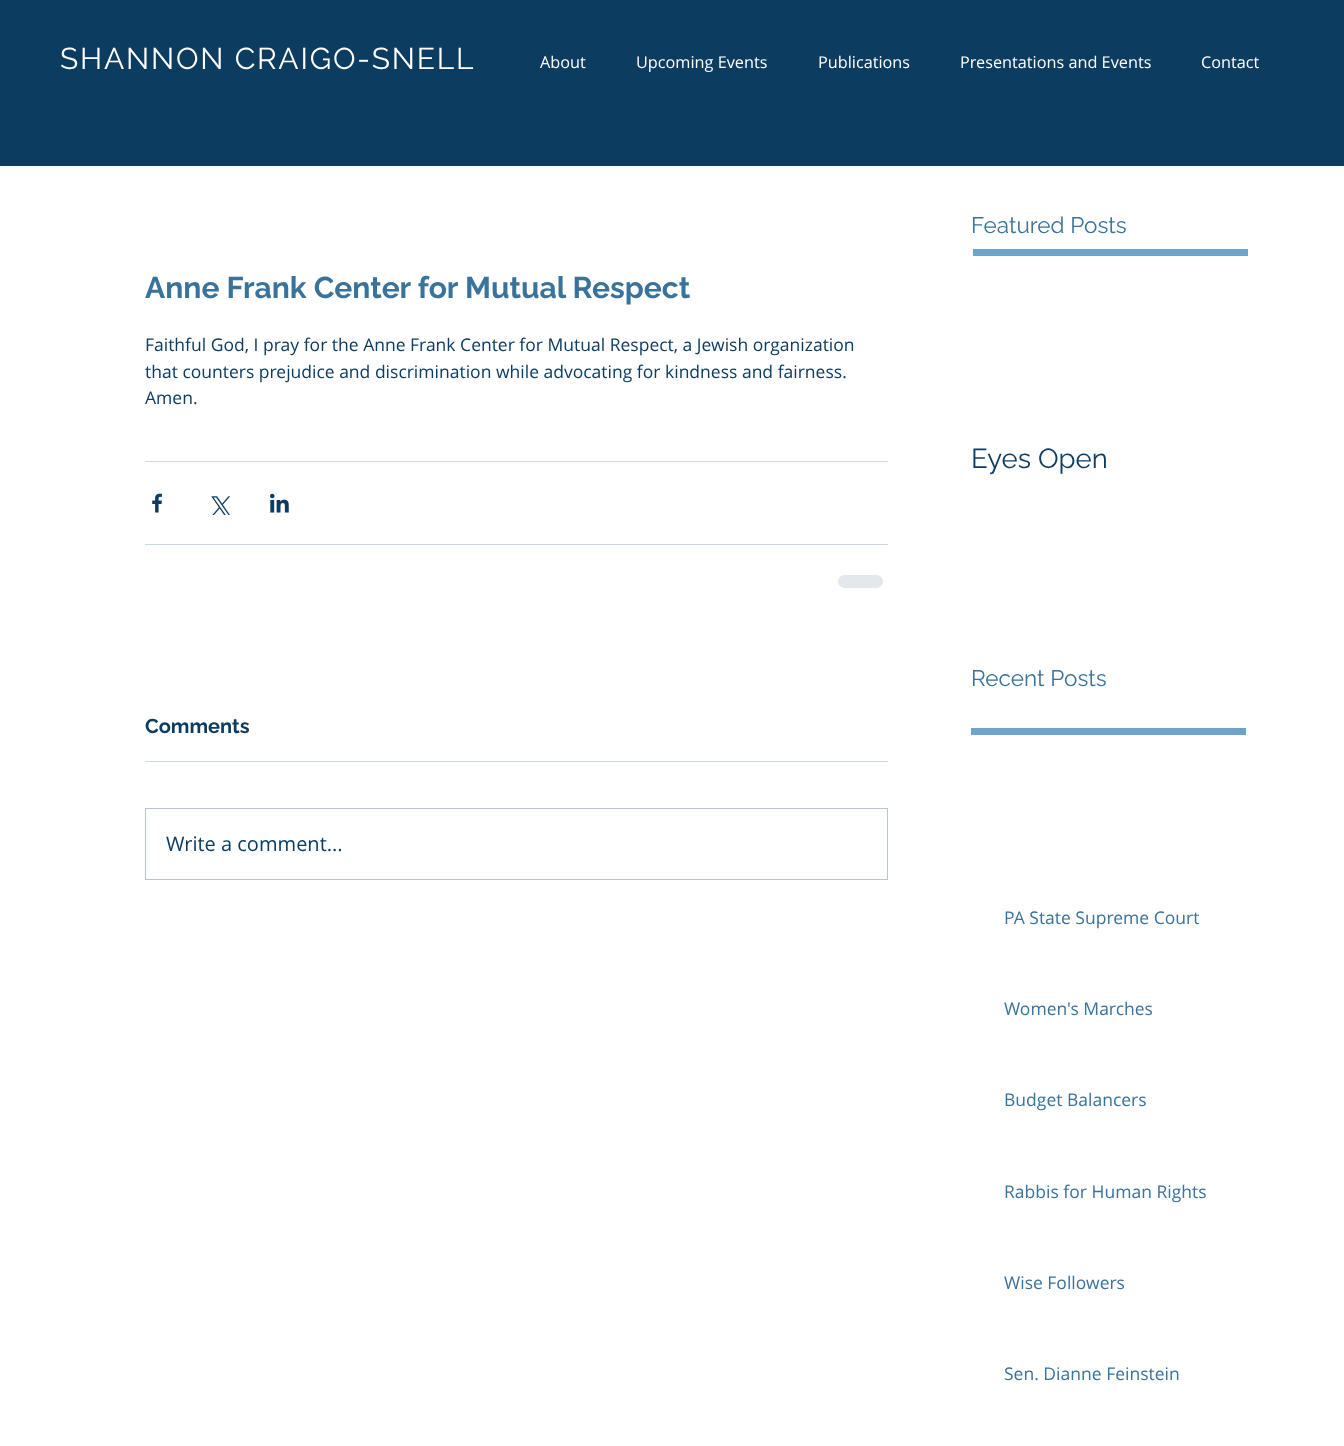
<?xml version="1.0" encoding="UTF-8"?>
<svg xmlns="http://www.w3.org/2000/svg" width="1344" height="1446">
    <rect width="100%" height="100%" fill="#FFFFFF"/>
    <rect x="0" y="0" width="1344" height="166" fill="#0C3C60"/>
    <text x="60" y="69" font-family="Raleway" font-size="30" letter-spacing="1.8" fill="#FFFFFF">SHANNON CRAIGO-SNELL</text>
    <text x="540" y="68" font-family="Open Sans" font-size="16.25" fill="#FFFFFF">About</text>
    <text x="636" y="68" font-family="Open Sans" font-size="16.25" fill="#FFFFFF">Upcoming Events</text>
    <text x="818" y="68" font-family="Open Sans" font-size="16.25" fill="#FFFFFF">Publications</text>
    <text x="960" y="68" font-family="Open Sans" font-size="16.25" fill="#FFFFFF">Presentations and Events</text>
    <text x="1201" y="68" font-family="Open Sans" font-size="16.25" fill="#FFFFFF">Contact</text>
    <text x="971" y="233" font-family="Raleway" font-size="22.5" fill="#39729B">Featured Posts</text>
    <rect x="973" y="249" width="275" height="7" fill="#6EA4CA"/>
    <text x="145" y="298" font-family="Raleway" font-size="30" font-weight="700" fill="#39729B">Anne Frank Center for Mutual Respect</text>
    <text font-family="Open Sans" font-size="17.5" fill="#0C3C60">
        <tspan x="145" y="351">Faithful God, I pray for the Anne Frank Center for Mutual Respect, a Jewish organization</tspan>
        <tspan x="145" y="378">that counters prejudice and discrimination while advocating for kindness and fairness.</tspan>
        <tspan x="145" y="404">Amen.</tspan>
    </text>
    <rect x="145" y="461" width="743" height="1" fill="#CED8DF"/>
    <image x="152" y="493" width="10" height="20" href="img_01.png"/>
    <image x="211" y="496" width="19" height="19" href="img_02.png"/>
    <image x="270" y="493" width="19" height="20" href="img_03.png"/>
    <rect x="145" y="544" width="743" height="1" fill="#CED8DF"/>
    <rect x="838" y="575" width="45" height="13" rx="6.5" fill="#E2E8EC"/>
    <text x="145" y="733" font-family="Raleway" font-size="20" font-weight="700" fill="#0C3C60">Comments</text>
    <rect x="145" y="761" width="743" height="1" fill="#CED8DF"/>
    <rect x="145.5" y="808.5" width="742" height="71" fill="none" stroke="#B6C5CF"/>
    <text x="166" y="851" font-family="Open Sans" font-size="20" fill="#0C3C60">Write a comment...</text>
    <text x="971" y="468" font-family="Raleway" font-size="27.5" fill="#0C3C60">Eyes Open</text>
    <text x="971" y="686" font-family="Raleway" font-size="22.5" fill="#39729B">Recent Posts</text>
    <rect x="971" y="728" width="275" height="7" fill="#6EA4CA"/>
    <text x="1004" y="924" font-family="Open Sans" font-size="17.5" fill="#39729B">PA State Supreme Court</text>
    <text x="1004" y="1015" font-family="Open Sans" font-size="17.5" fill="#39729B">Women's Marches</text>
    <text x="1004" y="1106" font-family="Open Sans" font-size="17.5" fill="#39729B">Budget Balancers</text>
    <text x="1004" y="1198" font-family="Open Sans" font-size="17.5" fill="#39729B">Rabbis for Human Rights</text>
    <text x="1004" y="1289" font-family="Open Sans" font-size="17.5" fill="#39729B">Wise Followers</text>
    <text x="1004" y="1380" font-family="Open Sans" font-size="17.5" fill="#39729B">Sen. Dianne Feinstein</text>
</svg>
